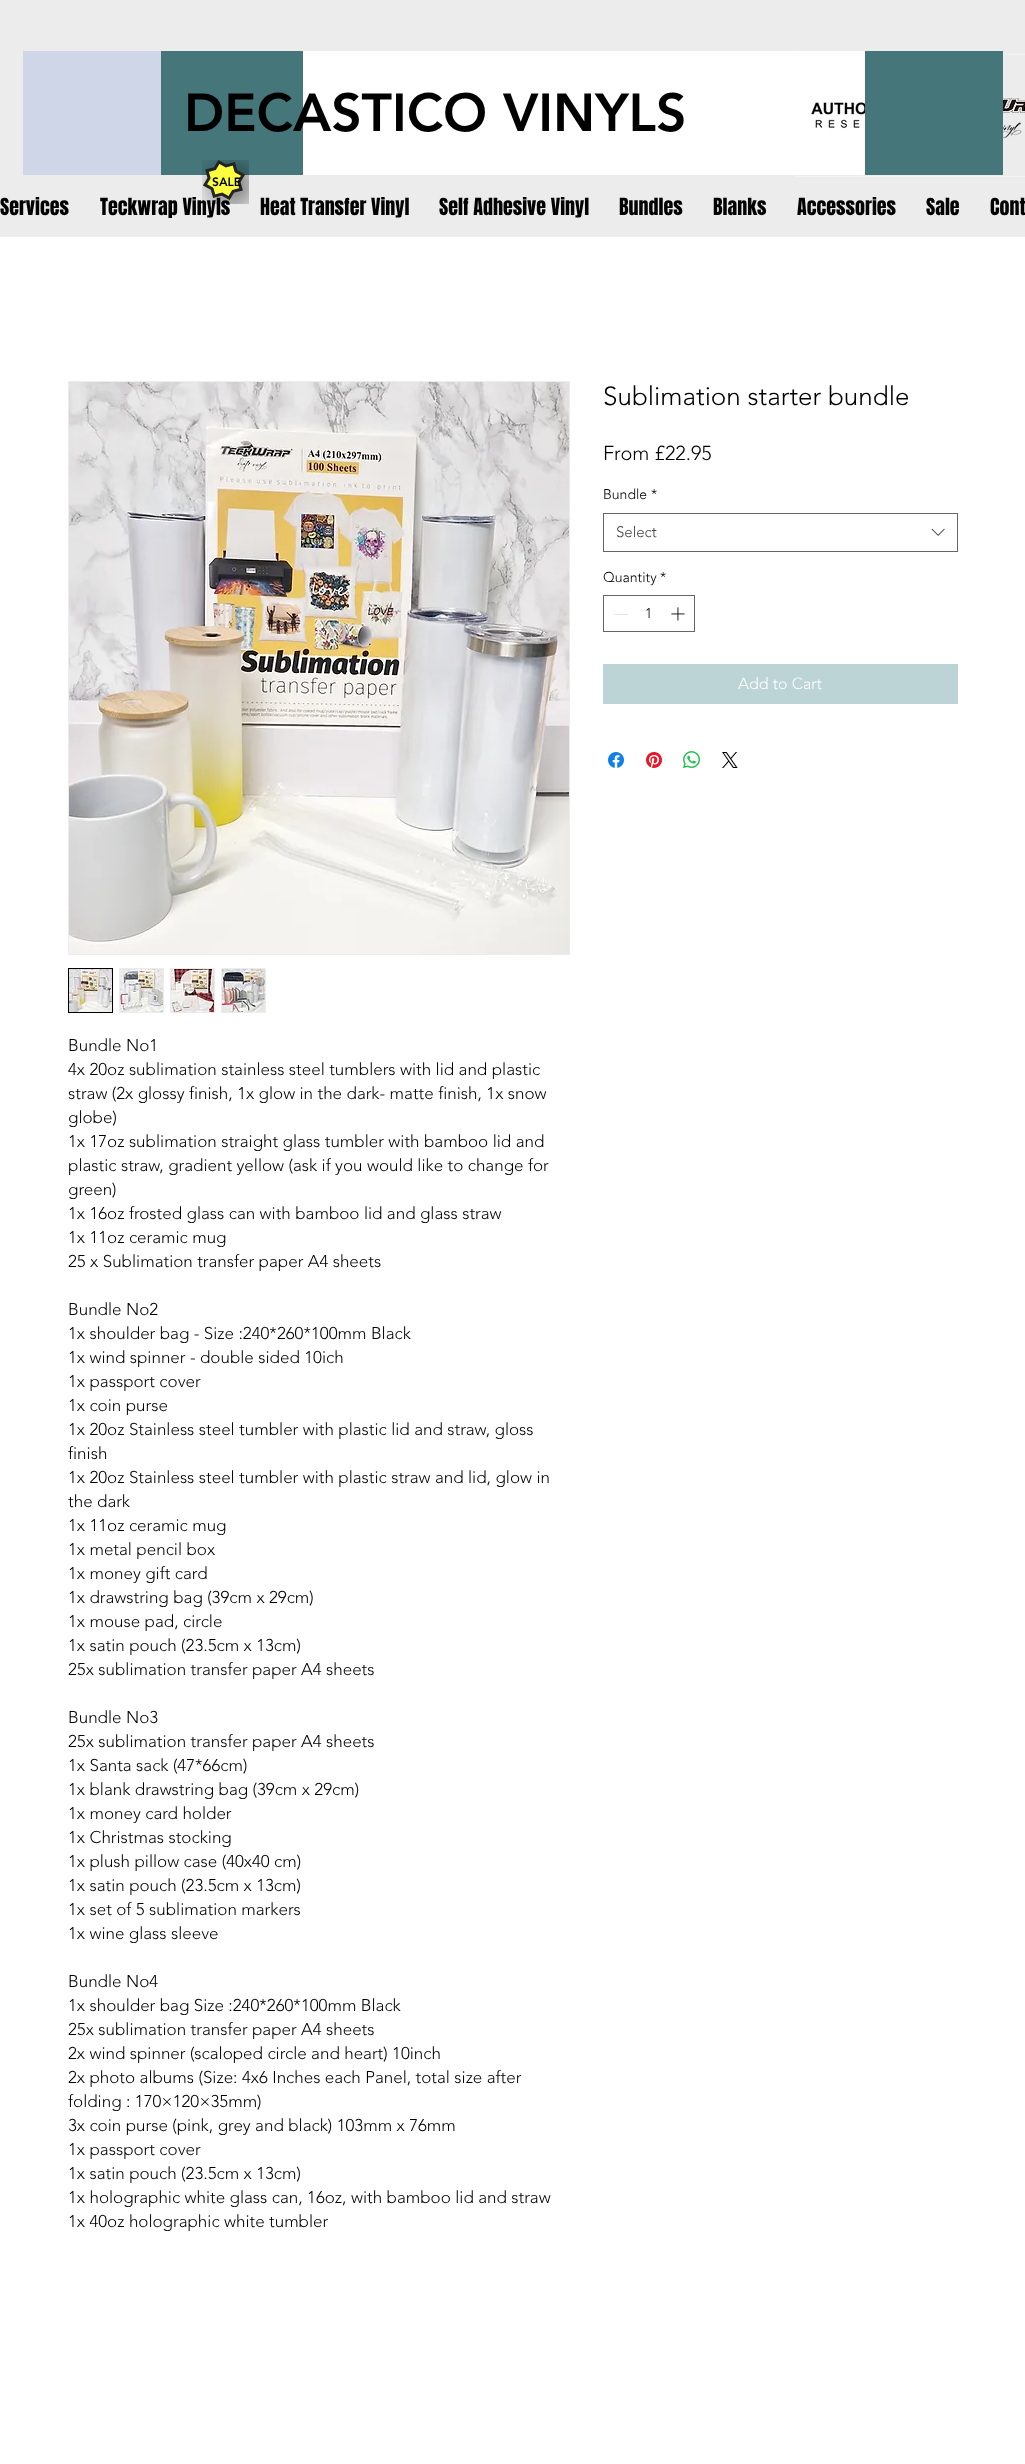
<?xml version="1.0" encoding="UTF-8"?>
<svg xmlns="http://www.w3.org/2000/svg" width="1025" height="2464">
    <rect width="100%" height="100%" fill="#FFFFFF"/>
    <rect x="0" y="0" width="1025" height="237" fill="#EDECEC"/>
    <rect x="303" y="51" width="562" height="124" fill="#FFFFFF"/>
    <rect x="23" y="51" width="138" height="124" fill="#CFD6E8"/>
    <rect x="161" y="51" width="142" height="124" fill="#44767A"/>
    <image x="796" y="54" width="229" height="123" href="img_01.png"/>
    <rect x="865" y="51" width="138" height="124" fill="#44767A"/>
    <text x="184" y="131" font-family="'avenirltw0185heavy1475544'" font-size="53" font-weight="900" fill="#000000">DECASTICO VINYLS</text>
    <text x="100" y="215" font-family="Anton" font-size="20" fill="#000000">Teckwrap Vinyls</text>
    <image x="202" y="160" width="47" height="44" href="img_02.png"/>
    <text x="212" y="186" font-family="'avenirltw0185heavy1475544'" font-size="12" font-weight="900" fill="#000000">SALE</text>
    <text x="0" y="215" font-family="Anton" font-size="20" fill="#000000">Services</text>
    <text x="260" y="215" font-family="Anton" font-size="20" fill="#000000">Heat Transfer Vinyl</text>
    <text x="439" y="215" font-family="Anton" font-size="20" fill="#000000">Self Adhesive Vinyl</text>
    <text x="619" y="215" font-family="Anton" font-size="20" fill="#000000">Bundles</text>
    <text x="713" y="215" font-family="Anton" font-size="20" fill="#000000">Blanks</text>
    <text x="797" y="215" font-family="Anton" font-size="20" fill="#000000">Accessories</text>
    <text x="926" y="215" font-family="Anton" font-size="20" fill="#000000">Sale</text>
    <text x="990" y="215" font-family="Anton" font-size="20" fill="#000000">Cont</text>
    <text x="603" y="405" font-family="'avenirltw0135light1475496'" font-size="26" font-weight="300" fill="#000000">Sublimation starter bundle</text>
    <text x="603" y="460" font-family="'avenirltw0135light1475496'" font-size="20" font-weight="300" fill="#000000">From £22.95</text>
    <text x="603" y="499" font-family="'avenirltw0135light1475496'" font-size="14" font-weight="300" fill="#000000">Bundle</text>
    <text x="651" y="499" font-family="'avenirltw0135light1475496'" font-size="14" font-weight="300" fill="#000000">*</text>
    <rect x="603.5" y="513.5" width="354" height="38" fill="none" stroke="#666666"/>
    <text x="616" y="537" font-family="'avenirltw0135light1475496'" font-size="15" font-weight="300" fill="#444444">Select</text>
    <image x="931" y="528" width="14" height="8" href="img_03.png"/>
    <text x="603" y="582" font-family="'avenirltw0135light1475496'" font-size="14" font-weight="300" fill="#000000">Quantity</text>
    <text x="660" y="582" font-family="'avenirltw0135light1475496'" font-size="14" font-weight="300" fill="#000000">*</text>
    <rect x="603.5" y="595.5" width="91" height="36" fill="none" stroke="#666666"/>
    <rect x="615" y="614" width="13" height="1" fill="#E3E3E3"/>
    <text x="645" y="618" font-family="'avenirltw0135light1475496'" font-size="14" font-weight="300" fill="#000000">1</text>
    <image x="671" y="607" width="14" height="14" href="img_04.png"/>
    <rect x="603" y="664" width="355" height="40" fill="#BCD4D6"/>
    <text x="738" y="689" font-family="'avenirltw0135light1475496'" font-size="16" font-weight="300" fill="#FFFFFF">Add to Cart</text>
    <image x="608" y="752" width="16" height="16" href="img_05.png"/>
    <image x="646" y="752" width="16" height="16" href="img_06.png"/>
    <image x="683" y="751" width="17" height="17" href="img_07.png"/>
    <image x="722" y="752" width="16" height="16" href="img_08.png"/>
    <rect x="68.5" y="381.5" width="501" height="573" fill="none" stroke="#EDECEC"/>
    <image x="69" y="382" width="500" height="572" href="img_09.png"/>
    <rect x="68.5" y="968.5" width="44" height="44" fill="none" stroke="#000000"/>
    <image x="69" y="969" width="43" height="43" href="img_10.png"/>
    <rect x="119" y="968" width="45" height="45" fill="#EDECEC"/>
    <image x="120" y="969" width="43" height="43" href="img_11.png"/>
    <rect x="170" y="968" width="45" height="45" fill="#EDECEC"/>
    <image x="171" y="969" width="43" height="43" href="img_12.png"/>
    <rect x="221" y="968" width="45" height="45" fill="#EDECEC"/>
    <image x="222" y="969" width="43" height="43" href="img_13.png"/>
    <text font-family="'avenirltw0135light1475496'" font-size="17" font-weight="300" fill="#000000">
        <tspan x="68" y="1051">Bundle No1</tspan>
        <tspan x="68" y="1075">4x 20oz sublimation stainless steel tumblers with lid and plastic</tspan>
        <tspan x="68" y="1099">straw (2x glossy finish, 1x glow in the dark- matte finish, 1x snow</tspan>
        <tspan x="68" y="1123">globe)</tspan>
        <tspan x="68" y="1147">1x 17oz sublimation straight glass tumbler with bamboo lid and</tspan>
        <tspan x="68" y="1171">plastic straw, gradient yellow (ask if you would like to change for</tspan>
        <tspan x="68" y="1195">green)</tspan>
        <tspan x="68" y="1219">1x 16oz frosted glass can with bamboo lid and glass straw</tspan>
        <tspan x="68" y="1243">1x 11oz ceramic mug</tspan>
        <tspan x="68" y="1267">25 x Sublimation transfer paper A4 sheets</tspan>
    </text>
    <text font-family="'avenirltw0135light1475496'" font-size="17" font-weight="300" fill="#000000">
        <tspan x="68" y="1315">Bundle No2</tspan>
        <tspan x="68" y="1339">1x shoulder bag - Size :240*260*100mm Black</tspan>
        <tspan x="68" y="1363">1x wind spinner - double sided 10ich</tspan>
        <tspan x="68" y="1387">1x passport cover</tspan>
        <tspan x="68" y="1411">1x coin purse</tspan>
        <tspan x="68" y="1435">1x 20oz Stainless steel tumbler with plastic lid and straw, gloss</tspan>
        <tspan x="68" y="1459">finish</tspan>
        <tspan x="68" y="1483">1x 20oz Stainless steel tumbler with plastic straw and lid, glow in</tspan>
        <tspan x="68" y="1507">the dark</tspan>
        <tspan x="68" y="1531">1x 11oz ceramic mug</tspan>
        <tspan x="68" y="1555">1x metal pencil box</tspan>
        <tspan x="68" y="1579">1x money gift card</tspan>
        <tspan x="68" y="1603">1x drawstring bag (39cm x 29cm)</tspan>
        <tspan x="68" y="1627">1x mouse pad, circle</tspan>
        <tspan x="68" y="1651">1x satin pouch (23.5cm x 13cm)</tspan>
        <tspan x="68" y="1675">25x sublimation transfer paper A4 sheets</tspan>
    </text>
    <text font-family="'avenirltw0135light1475496'" font-size="17" font-weight="300" fill="#000000">
        <tspan x="68" y="1723">Bundle No3</tspan>
        <tspan x="68" y="1747">25x sublimation transfer paper A4 sheets</tspan>
        <tspan x="68" y="1771">1x Santa sack (47*66cm)</tspan>
        <tspan x="68" y="1795">1x blank drawstring bag (39cm x 29cm)</tspan>
        <tspan x="68" y="1819">1x money card holder</tspan>
        <tspan x="68" y="1843">1x Christmas stocking</tspan>
        <tspan x="68" y="1867">1x plush pillow case (40x40 cm)</tspan>
        <tspan x="68" y="1891">1x satin pouch (23.5cm x 13cm)</tspan>
        <tspan x="68" y="1915">1x set of 5 sublimation markers</tspan>
        <tspan x="68" y="1939">1x wine glass sleeve</tspan>
    </text>
    <text font-family="'avenirltw0135light1475496'" font-size="17" font-weight="300" fill="#000000">
        <tspan x="68" y="1987">Bundle No4</tspan>
        <tspan x="68" y="2011">1x shoulder bag Size :240*260*100mm Black</tspan>
        <tspan x="68" y="2035">25x sublimation transfer paper A4 sheets</tspan>
        <tspan x="68" y="2059">2x wind spinner (scaloped circle and heart) 10inch</tspan>
        <tspan x="68" y="2083">2x photo albums (Size: 4x6 Inches each Panel, total size after</tspan>
        <tspan x="68" y="2107">folding : 170×120×35mm)</tspan>
        <tspan x="68" y="2131">3x coin purse (pink, grey and black) 103mm x 76mm</tspan>
        <tspan x="68" y="2155">1x passport cover</tspan>
        <tspan x="68" y="2179">1x satin pouch (23.5cm x 13cm)</tspan>
        <tspan x="68" y="2203">1x holographic white glass can, 16oz, with bamboo lid and straw</tspan>
        <tspan x="68" y="2227">1x 40oz holographic white tumbler</tspan>
    </text>
</svg>
